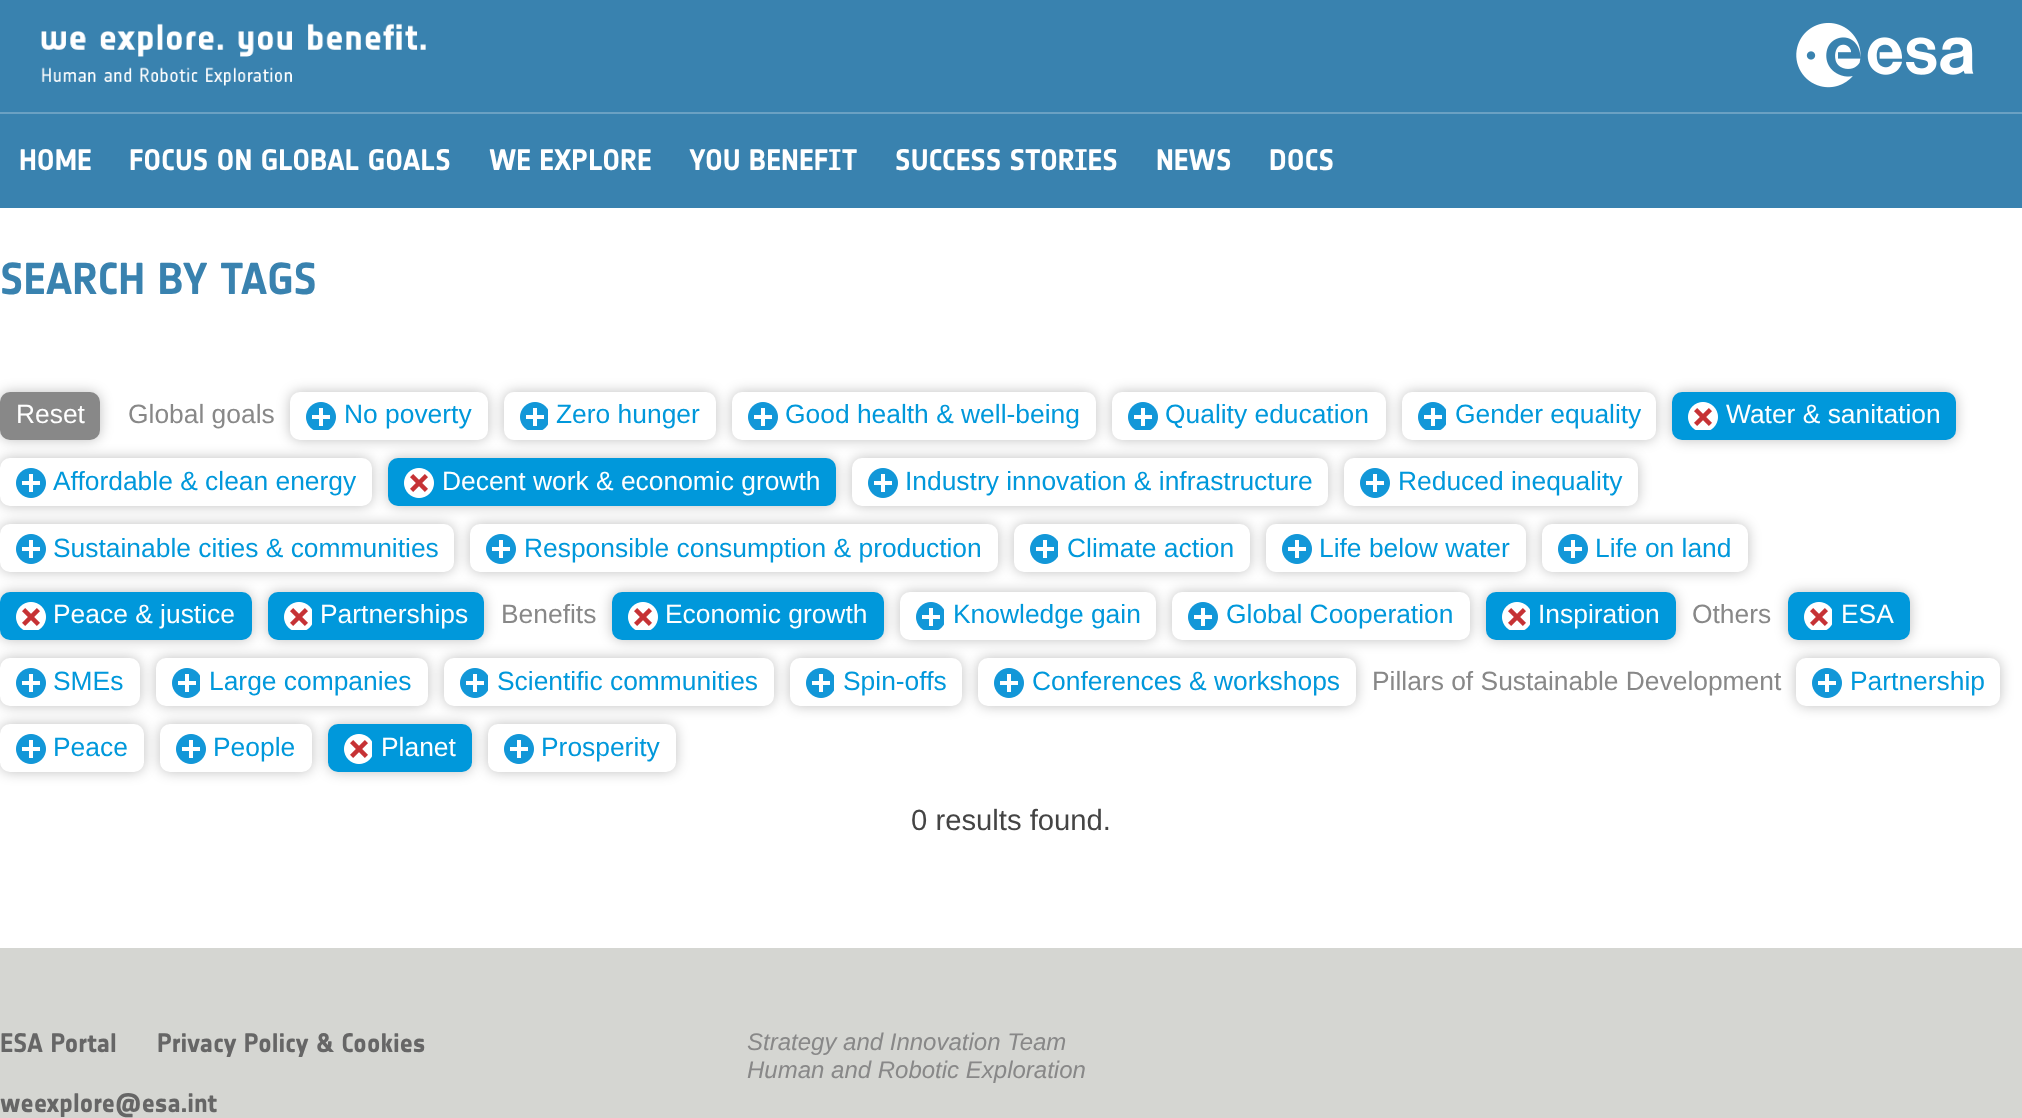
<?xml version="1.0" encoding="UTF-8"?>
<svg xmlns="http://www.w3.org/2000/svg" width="2022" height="1118">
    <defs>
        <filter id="blur1" x="-50%" y="-200%" width="200%" height="500%"><feGaussianBlur stdDeviation="6.5"/></filter>
    </defs>
    <rect width="100%" height="100%" fill="#FFFFFF"/>
    <rect x="0" y="0" width="2022" height="112" fill="#3982AF"/>
    <image x="41" y="23" width="385" height="63" href="img_01.png"/>
    <image x="1796" y="22" width="178" height="66" href="img_02.png"/>
    <rect x="0" y="114" width="2022" height="94" fill="#3982AF"/>
    <rect x="0" y="112" width="2022" height="2" fill="#6BA1C3"/>
    <text x="19" y="170" font-family="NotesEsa" font-size="29.25" font-weight="700" fill="#FFFFFF">HOME</text>
    <text x="129" y="170" font-family="NotesEsa" font-size="29.25" font-weight="700" fill="#FFFFFF">FOCUS ON GLOBAL GOALS</text>
    <text x="489" y="170" font-family="NotesEsa" font-size="29.25" font-weight="700" fill="#FFFFFF">WE EXPLORE</text>
    <text x="689" y="170" font-family="NotesEsa" font-size="29.25" font-weight="700" fill="#FFFFFF">YOU BENEFIT</text>
    <text x="895" y="170" font-family="NotesEsa" font-size="29.25" font-weight="700" fill="#FFFFFF">SUCCESS STORIES</text>
    <text x="1156" y="170" font-family="NotesEsa" font-size="29.25" font-weight="700" fill="#FFFFFF">NEWS</text>
    <text x="1269" y="170" font-family="NotesEsa" font-size="29.25" font-weight="700" fill="#FFFFFF">DOCS</text>
    <text x="0" y="294" font-family="NotesEsa" font-size="44" font-weight="700" fill="#3982AF">SEARCH BY TAGS</text>
    <rect x="0" y="392" width="100" height="48" rx="10" fill="#000000" fill-opacity="0.25" filter="url(#blur1)"/>
    <rect x="0" y="392" width="100" height="48" rx="10" fill="#888888"/>
    <text x="16" y="423" font-family="Liberation Sans" font-size="26.4" fill="#FFFFFF">Reset</text>
    <text x="128" y="423" font-family="Liberation Sans" font-size="26.4" fill="#888888">Global goals</text>
    <rect x="290" y="392" width="198" height="48" rx="10" fill="#000000" fill-opacity="0.25" filter="url(#blur1)"/>
    <rect x="290" y="392" width="198" height="48" rx="10" fill="#FFFFFF"/>
    <image x="306" y="402" width="30" height="28" href="img_03.png"/>
    <text x="344" y="423" font-family="Liberation Sans" font-size="26.4" fill="#0098DB">No poverty</text>
    <rect x="504" y="392" width="212" height="48" rx="10" fill="#000000" fill-opacity="0.25" filter="url(#blur1)"/>
    <rect x="504" y="392" width="212" height="48" rx="10" fill="#FFFFFF"/>
    <image x="520" y="402" width="28" height="28" href="img_04.png"/>
    <text x="556" y="423" font-family="Liberation Sans" font-size="26.4" fill="#0098DB">Zero hunger</text>
    <rect x="732" y="392" width="364" height="48" rx="10" fill="#000000" fill-opacity="0.25" filter="url(#blur1)"/>
    <rect x="732" y="392" width="364" height="48" rx="10" fill="#FFFFFF"/>
    <image x="748" y="402" width="30" height="28" href="img_03.png"/>
    <text x="785" y="423" font-family="Liberation Sans" font-size="26.4" fill="#0098DB">Good health &amp; well-being</text>
    <rect x="1112" y="392" width="274" height="48" rx="10" fill="#000000" fill-opacity="0.25" filter="url(#blur1)"/>
    <rect x="1112" y="392" width="274" height="48" rx="10" fill="#FFFFFF"/>
    <image x="1128" y="402" width="30" height="28" href="img_03.png"/>
    <text x="1165" y="423" font-family="Liberation Sans" font-size="26.4" fill="#0098DB">Quality education</text>
    <rect x="1402" y="392" width="254" height="48" rx="10" fill="#000000" fill-opacity="0.25" filter="url(#blur1)"/>
    <rect x="1402" y="392" width="254" height="48" rx="10" fill="#FFFFFF"/>
    <image x="1418" y="402" width="28" height="28" href="img_04.png"/>
    <text x="1455" y="423" font-family="Liberation Sans" font-size="26.4" fill="#0098DB">Gender equality</text>
    <rect x="1672" y="392" width="284" height="48" rx="10" fill="#000000" fill-opacity="0.25" filter="url(#blur1)"/>
    <rect x="1672" y="392" width="284" height="48" rx="10" fill="#0098DB"/>
    <image x="1688" y="402" width="30" height="28" href="img_05.png"/>
    <text x="1726" y="423" font-family="Liberation Sans" font-size="26.4" fill="#FFFFFF">Water &amp; sanitation</text>
    <rect x="0" y="458" width="372" height="48" rx="10" fill="#000000" fill-opacity="0.25" filter="url(#blur1)"/>
    <rect x="0" y="458" width="372" height="48" rx="10" fill="#FFFFFF"/>
    <image x="16" y="468" width="30" height="30" href="img_06.png"/>
    <text x="53" y="490" font-family="Liberation Sans" font-size="26.4" fill="#0098DB">Affordable &amp; clean energy</text>
    <rect x="388" y="458" width="448" height="48" rx="10" fill="#000000" fill-opacity="0.25" filter="url(#blur1)"/>
    <rect x="388" y="458" width="448" height="48" rx="10" fill="#0098DB"/>
    <image x="404" y="468" width="30" height="30" href="img_07.png"/>
    <text x="442" y="490" font-family="Liberation Sans" font-size="26.4" fill="#FFFFFF">Decent work &amp; economic growth</text>
    <rect x="852" y="458" width="476" height="48" rx="10" fill="#000000" fill-opacity="0.25" filter="url(#blur1)"/>
    <rect x="852" y="458" width="476" height="48" rx="10" fill="#FFFFFF"/>
    <image x="868" y="468" width="30" height="30" href="img_06.png"/>
    <text x="905" y="490" font-family="Liberation Sans" font-size="26.4" fill="#0098DB">Industry innovation &amp; infrastructure</text>
    <rect x="1344" y="458" width="294" height="48" rx="10" fill="#000000" fill-opacity="0.25" filter="url(#blur1)"/>
    <rect x="1344" y="458" width="294" height="48" rx="10" fill="#FFFFFF"/>
    <image x="1360" y="468" width="30" height="30" href="img_06.png"/>
    <text x="1398" y="490" font-family="Liberation Sans" font-size="26.4" fill="#0098DB">Reduced inequality</text>
    <rect x="0" y="524" width="454" height="48" rx="10" fill="#000000" fill-opacity="0.25" filter="url(#blur1)"/>
    <rect x="0" y="524" width="454" height="48" rx="10" fill="#FFFFFF"/>
    <image x="16" y="534" width="30" height="30" href="img_06.png"/>
    <text x="53" y="557" font-family="Liberation Sans" font-size="26.4" fill="#0098DB">Sustainable cities &amp; communities</text>
    <rect x="470" y="524" width="528" height="48" rx="10" fill="#000000" fill-opacity="0.25" filter="url(#blur1)"/>
    <rect x="470" y="524" width="528" height="48" rx="10" fill="#FFFFFF"/>
    <image x="486" y="534" width="30" height="30" href="img_06.png"/>
    <text x="524" y="557" font-family="Liberation Sans" font-size="26.4" fill="#0098DB">Responsible consumption &amp; production</text>
    <rect x="1014" y="524" width="236" height="48" rx="10" fill="#000000" fill-opacity="0.25" filter="url(#blur1)"/>
    <rect x="1014" y="524" width="236" height="48" rx="10" fill="#FFFFFF"/>
    <image x="1030" y="534" width="28" height="30" href="img_08.png"/>
    <text x="1067" y="557" font-family="Liberation Sans" font-size="26.4" fill="#0098DB">Climate action</text>
    <rect x="1266" y="524" width="260" height="48" rx="10" fill="#000000" fill-opacity="0.25" filter="url(#blur1)"/>
    <rect x="1266" y="524" width="260" height="48" rx="10" fill="#FFFFFF"/>
    <image x="1282" y="534" width="30" height="30" href="img_06.png"/>
    <text x="1319" y="557" font-family="Liberation Sans" font-size="26.4" fill="#0098DB">Life below water</text>
    <rect x="1542" y="524" width="206" height="48" rx="10" fill="#000000" fill-opacity="0.25" filter="url(#blur1)"/>
    <rect x="1542" y="524" width="206" height="48" rx="10" fill="#FFFFFF"/>
    <image x="1558" y="534" width="30" height="30" href="img_06.png"/>
    <text x="1595" y="557" font-family="Liberation Sans" font-size="26.4" fill="#0098DB">Life on land</text>
    <rect x="0" y="592" width="252" height="48" rx="10" fill="#000000" fill-opacity="0.25" filter="url(#blur1)"/>
    <rect x="0" y="592" width="252" height="48" rx="10" fill="#0098DB"/>
    <image x="16" y="602" width="30" height="28" href="img_05.png"/>
    <text x="53" y="623" font-family="Liberation Sans" font-size="26.4" fill="#FFFFFF">Peace &amp; justice</text>
    <rect x="268" y="592" width="216" height="48" rx="10" fill="#000000" fill-opacity="0.25" filter="url(#blur1)"/>
    <rect x="268" y="592" width="216" height="48" rx="10" fill="#0098DB"/>
    <image x="284" y="602" width="28" height="28" href="img_09.png"/>
    <text x="320" y="623" font-family="Liberation Sans" font-size="26.4" fill="#FFFFFF">Partnerships</text>
    <text x="501" y="623" font-family="Liberation Sans" font-size="26.4" fill="#888888">Benefits</text>
    <rect x="612" y="592" width="272" height="48" rx="10" fill="#000000" fill-opacity="0.25" filter="url(#blur1)"/>
    <rect x="612" y="592" width="272" height="48" rx="10" fill="#0098DB"/>
    <image x="628" y="602" width="30" height="28" href="img_05.png"/>
    <text x="665" y="623" font-family="Liberation Sans" font-size="26.4" fill="#FFFFFF">Economic growth</text>
    <rect x="900" y="592" width="256" height="48" rx="10" fill="#000000" fill-opacity="0.25" filter="url(#blur1)"/>
    <rect x="900" y="592" width="256" height="48" rx="10" fill="#FFFFFF"/>
    <image x="916" y="602" width="28" height="28" href="img_04.png"/>
    <text x="953" y="623" font-family="Liberation Sans" font-size="26.4" fill="#0098DB">Knowledge gain</text>
    <rect x="1172" y="592" width="298" height="48" rx="10" fill="#000000" fill-opacity="0.25" filter="url(#blur1)"/>
    <rect x="1172" y="592" width="298" height="48" rx="10" fill="#FFFFFF"/>
    <image x="1188" y="602" width="30" height="28" href="img_03.png"/>
    <text x="1226" y="623" font-family="Liberation Sans" font-size="26.4" fill="#0098DB">Global Cooperation</text>
    <rect x="1486" y="592" width="190" height="48" rx="10" fill="#000000" fill-opacity="0.25" filter="url(#blur1)"/>
    <rect x="1486" y="592" width="190" height="48" rx="10" fill="#0098DB"/>
    <image x="1502" y="602" width="28" height="28" href="img_09.png"/>
    <text x="1538" y="623" font-family="Liberation Sans" font-size="26.4" fill="#FFFFFF">Inspiration</text>
    <text x="1692" y="623" font-family="Liberation Sans" font-size="26.4" fill="#888888">Others</text>
    <rect x="1788" y="592" width="122" height="48" rx="10" fill="#000000" fill-opacity="0.25" filter="url(#blur1)"/>
    <rect x="1788" y="592" width="122" height="48" rx="10" fill="#0098DB"/>
    <image x="1804" y="602" width="28" height="28" href="img_09.png"/>
    <text x="1841" y="623" font-family="Liberation Sans" font-size="26.4" fill="#FFFFFF">ESA</text>
    <rect x="0" y="658" width="140" height="48" rx="10" fill="#000000" fill-opacity="0.25" filter="url(#blur1)"/>
    <rect x="0" y="658" width="140" height="48" rx="10" fill="#FFFFFF"/>
    <image x="16" y="668" width="30" height="30" href="img_06.png"/>
    <text x="53" y="690" font-family="Liberation Sans" font-size="26.4" fill="#0098DB">SMEs</text>
    <rect x="156" y="658" width="272" height="48" rx="10" fill="#000000" fill-opacity="0.25" filter="url(#blur1)"/>
    <rect x="156" y="658" width="272" height="48" rx="10" fill="#FFFFFF"/>
    <image x="172" y="668" width="28" height="30" href="img_08.png"/>
    <text x="209" y="690" font-family="Liberation Sans" font-size="26.4" fill="#0098DB">Large companies</text>
    <rect x="444" y="658" width="330" height="48" rx="10" fill="#000000" fill-opacity="0.25" filter="url(#blur1)"/>
    <rect x="444" y="658" width="330" height="48" rx="10" fill="#FFFFFF"/>
    <image x="460" y="668" width="28" height="30" href="img_08.png"/>
    <text x="497" y="690" font-family="Liberation Sans" font-size="26.4" fill="#0098DB">Scientific communities</text>
    <rect x="790" y="658" width="172" height="48" rx="10" fill="#000000" fill-opacity="0.25" filter="url(#blur1)"/>
    <rect x="790" y="658" width="172" height="48" rx="10" fill="#FFFFFF"/>
    <image x="806" y="668" width="28" height="30" href="img_08.png"/>
    <text x="843" y="690" font-family="Liberation Sans" font-size="26.4" fill="#0098DB">Spin-offs</text>
    <rect x="978" y="658" width="378" height="48" rx="10" fill="#000000" fill-opacity="0.25" filter="url(#blur1)"/>
    <rect x="978" y="658" width="378" height="48" rx="10" fill="#FFFFFF"/>
    <image x="994" y="668" width="30" height="30" href="img_06.png"/>
    <text x="1032" y="690" font-family="Liberation Sans" font-size="26.4" fill="#0098DB">Conferences &amp; workshops</text>
    <text x="1372" y="690" font-family="Liberation Sans" font-size="26.4" fill="#888888">Pillars of Sustainable Development</text>
    <rect x="1796" y="658" width="204" height="48" rx="10" fill="#000000" fill-opacity="0.25" filter="url(#blur1)"/>
    <rect x="1796" y="658" width="204" height="48" rx="10" fill="#FFFFFF"/>
    <image x="1812" y="668" width="30" height="30" href="img_06.png"/>
    <text x="1850" y="690" font-family="Liberation Sans" font-size="26.4" fill="#0098DB">Partnership</text>
    <rect x="0" y="724" width="144" height="48" rx="10" fill="#000000" fill-opacity="0.25" filter="url(#blur1)"/>
    <rect x="0" y="724" width="144" height="48" rx="10" fill="#FFFFFF"/>
    <image x="16" y="734" width="30" height="30" href="img_06.png"/>
    <text x="53" y="756" font-family="Liberation Sans" font-size="26.4" fill="#0098DB">Peace</text>
    <rect x="160" y="724" width="152" height="48" rx="10" fill="#000000" fill-opacity="0.25" filter="url(#blur1)"/>
    <rect x="160" y="724" width="152" height="48" rx="10" fill="#FFFFFF"/>
    <image x="176" y="734" width="30" height="30" href="img_06.png"/>
    <text x="213" y="756" font-family="Liberation Sans" font-size="26.4" fill="#0098DB">People</text>
    <rect x="328" y="724" width="144" height="48" rx="10" fill="#000000" fill-opacity="0.25" filter="url(#blur1)"/>
    <rect x="328" y="724" width="144" height="48" rx="10" fill="#0098DB"/>
    <image x="344" y="734" width="28" height="30" href="img_10.png"/>
    <text x="381" y="756" font-family="Liberation Sans" font-size="26.4" fill="#FFFFFF">Planet</text>
    <rect x="488" y="724" width="188" height="48" rx="10" fill="#000000" fill-opacity="0.25" filter="url(#blur1)"/>
    <rect x="488" y="724" width="188" height="48" rx="10" fill="#FFFFFF"/>
    <image x="504" y="734" width="30" height="30" href="img_06.png"/>
    <text x="541" y="756" font-family="Liberation Sans" font-size="26.4" fill="#0098DB">Prosperity</text>
    <text x="911" y="830" font-family="Liberation Sans" font-size="29.25" fill="#444444">0 results found.</text>
    <rect x="0" y="948" width="2022" height="170" fill="#D5D6D2"/>
    <text x="0" y="1052" font-family="NotesEsa" font-size="26.4" font-weight="700" fill="#666666">ESA Portal</text>
    <text x="157" y="1052" font-family="NotesEsa" font-size="26.4" font-weight="700" fill="#666666">Privacy Policy &amp; Cookies</text>
    <text x="0" y="1112" font-family="NotesEsa" font-size="26.4" font-weight="700" fill="#666666">weexplore@esa.int</text>
    <text font-family="Liberation Sans" font-size="24" font-style="italic" fill="#888888">
        <tspan x="747" y="1050">Strategy and Innovation Team</tspan>
        <tspan x="747" y="1078">Human and Robotic Exploration</tspan>
    </text>
</svg>
